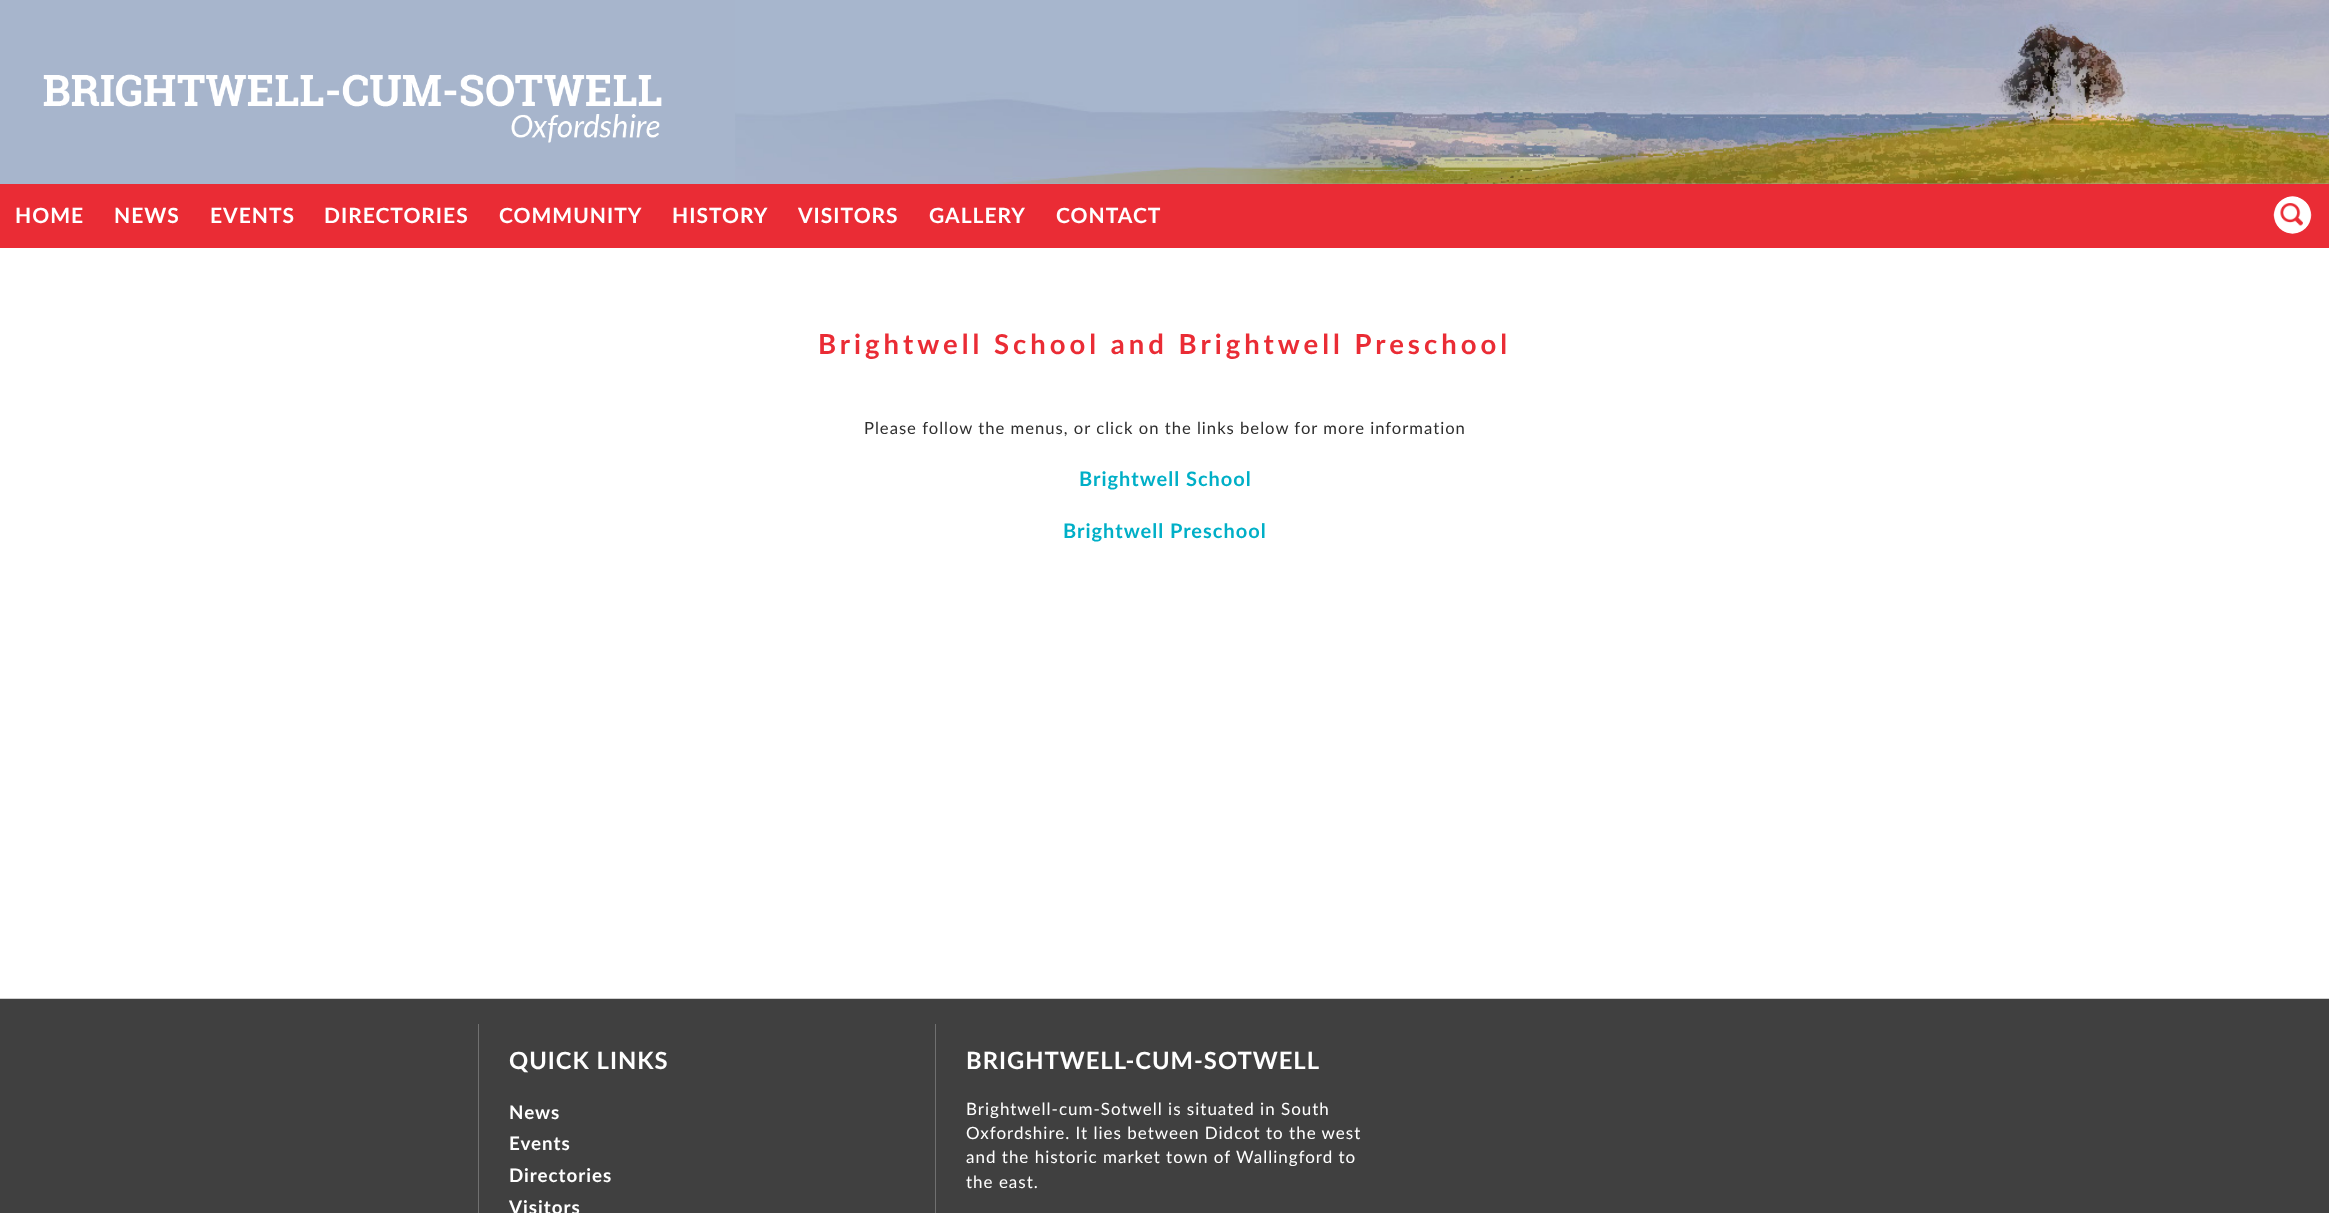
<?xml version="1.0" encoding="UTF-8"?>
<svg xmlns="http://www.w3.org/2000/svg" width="2329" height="1213">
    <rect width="100%" height="100%" fill="#FFFFFF"/>
    <rect x="0" y="0" width="2329" height="184" fill="#A7B5CC"/>
    <image x="735" y="0" width="1594" height="184" href="img_01.png"/>
    <image x="43" y="74" width="619" height="69" href="img_02.png"/>
    <rect x="0" y="184" width="2329" height="64" fill="#EA2C35"/>
    <text x="15" y="223" font-family="Lato" font-size="21" font-weight="700" letter-spacing="1" fill="#FFFFFF">HOME</text>
    <text x="114" y="223" font-family="Lato" font-size="21" font-weight="700" letter-spacing="1" fill="#FFFFFF">NEWS</text>
    <text x="210" y="223" font-family="Lato" font-size="21" font-weight="700" letter-spacing="1" fill="#FFFFFF">EVENTS</text>
    <text x="324" y="223" font-family="Lato" font-size="21" font-weight="700" letter-spacing="1" fill="#FFFFFF">DIRECTORIES</text>
    <text x="499" y="223" font-family="Lato" font-size="21" font-weight="700" letter-spacing="1" fill="#FFFFFF">COMMUNITY</text>
    <text x="672" y="223" font-family="Lato" font-size="21" font-weight="700" letter-spacing="1" fill="#FFFFFF">HISTORY</text>
    <text x="798" y="223" font-family="Lato" font-size="21" font-weight="700" letter-spacing="1" fill="#FFFFFF">VISITORS</text>
    <text x="929" y="223" font-family="Lato" font-size="21" font-weight="700" letter-spacing="1" fill="#FFFFFF">GALLERY</text>
    <text x="1056" y="223" font-family="Lato" font-size="21" font-weight="700" letter-spacing="1" fill="#FFFFFF">CONTACT</text>
    <image x="2273" y="196" width="39" height="38" href="img_03.png"/>
    <text x="818" y="354" font-family="Lato" font-size="27.5" font-weight="700" letter-spacing="4" fill="#EA2C35">Brightwell School and Brightwell Preschool</text>
    <text x="864" y="434" font-family="Lato" font-size="16.65" letter-spacing="1" fill="#2E2E2E">Please follow the menus, or click on the links below for more information</text>
    <text x="1079" y="486" font-family="Lato" font-size="20" font-weight="700" letter-spacing="1" fill="#00AFC7">Brightwell School</text>
    <text x="1063" y="538" font-family="Lato" font-size="20" font-weight="700" letter-spacing="1" fill="#00AFC7">Brightwell Preschool</text>
    <rect x="0" y="999" width="2329" height="214" fill="#404040"/>
    <rect x="0" y="998" width="2329" height="1" fill="#D0D0D0"/>
    <rect x="935" y="1024" width="1" height="189" fill="#707070"/>
    <rect x="478" y="1024" width="1" height="189" fill="#707070"/>
    <text x="509" y="1069" font-family="Lato" font-size="23.75" font-weight="700" letter-spacing="1" fill="#FFFFFF">QUICK LINKS</text>
    <text font-family="Lato" font-size="18.75" font-weight="700" letter-spacing="1" fill="#FFFFFF">
        <tspan x="509" y="1119">News</tspan>
        <tspan x="509" y="1150">Events</tspan>
        <tspan x="509" y="1182">Directories</tspan>
        <tspan x="509" y="1214">Visitors</tspan>
    </text>
    <text x="966" y="1069" font-family="Lato" font-size="23.75" font-weight="700" letter-spacing="1" fill="#FFFFFF">BRIGHTWELL-CUM-SOTWELL</text>
    <text font-family="Lato" font-size="17" letter-spacing="1" fill="#FFFFFF">
        <tspan x="966" y="1115">Brightwell-cum-Sotwell is situated in South</tspan>
        <tspan x="966" y="1139">Oxfordshire. It lies between Didcot to the west</tspan>
        <tspan x="966" y="1163">and the historic market town of Wallingford to</tspan>
        <tspan x="966" y="1188">the east.</tspan>
    </text>
</svg>
